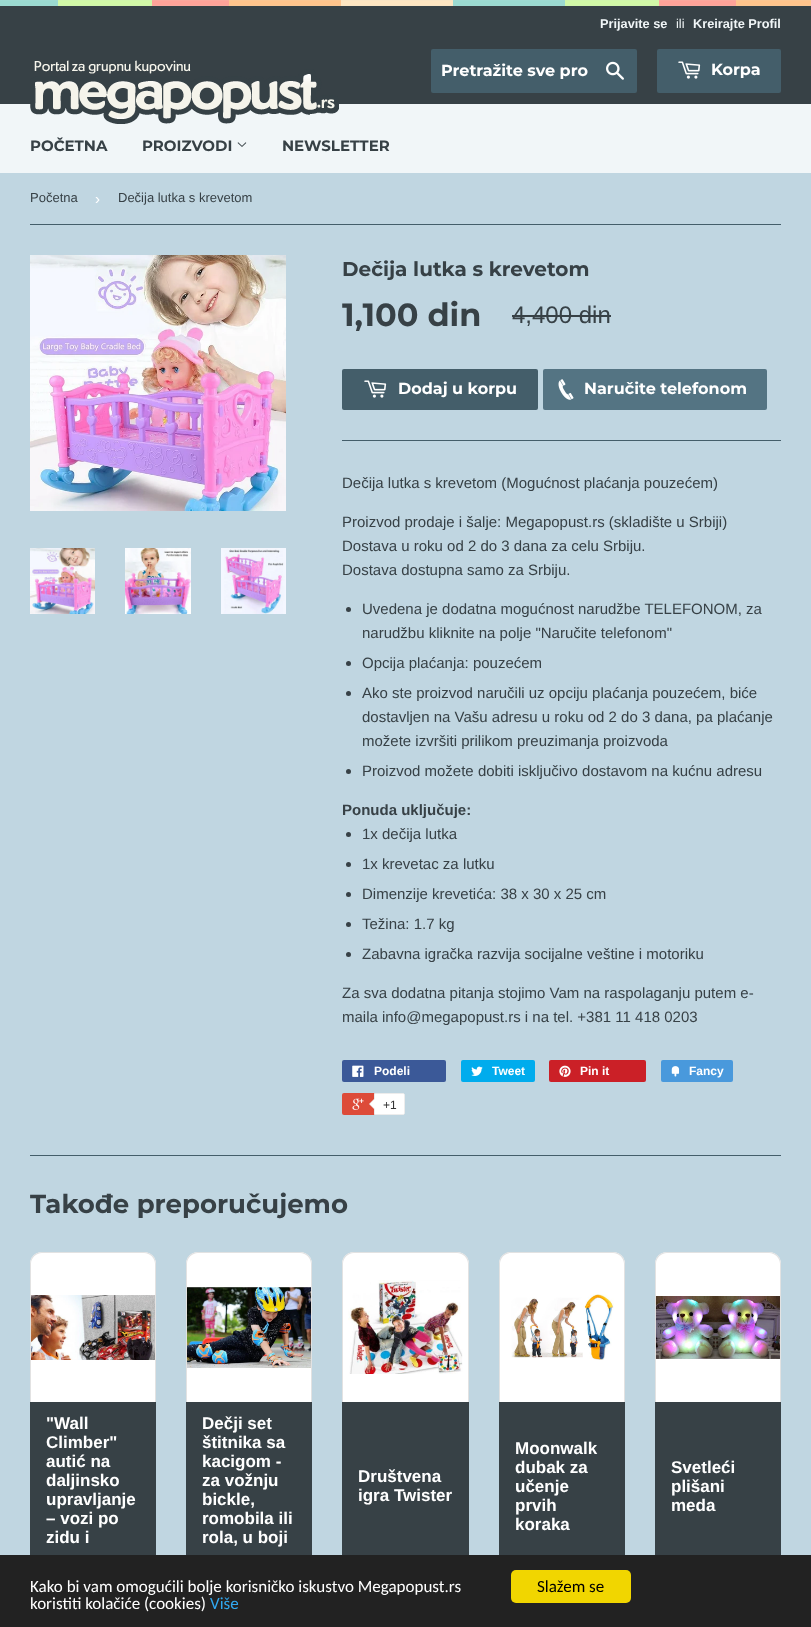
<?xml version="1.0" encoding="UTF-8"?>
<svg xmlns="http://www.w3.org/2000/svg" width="811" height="1627">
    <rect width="100%" height="100%" fill="#C0D6E1"/>
    <rect x="0" y="6" width="811" height="98" fill="#374146"/>
    <image x="0" y="0" width="811" height="6" href="img_01.png"/>
    <text x="600" y="28" font-family="Liberation Sans" font-size="12.75" font-weight="700" fill="#F1F6F8">Prijavite se</text>
    <text x="676" y="28" font-family="Liberation Sans" font-size="12.75" fill="#F1F6F8">ili</text>
    <text x="693" y="28" font-family="Liberation Sans" font-size="12.75" font-weight="700" fill="#F1F6F8">Kreirajte Profil</text>
    <rect x="431" y="49" width="206" height="44" rx="2" fill="#445E6A"/>
    <text x="441" y="76" font-family="Montserrat" font-size="16" font-weight="100" fill="#FFFFFF">Pretražite sve pro</text>
    <image x="606" y="61" width="18" height="19" href="img_02.png"/>
    <rect x="657" y="49" width="124" height="44" rx="2" fill="#445E6A"/>
    <image x="678" y="61" width="23" height="18" href="img_03.png"/>
    <text x="711" y="75" font-family="Montserrat" font-size="16" font-weight="100" fill="#FFFFFF">Korpa</text>
    <rect x="0" y="104" width="811" height="69" fill="#F1F6F8"/>
    <image x="30" y="60" width="309" height="64" href="img_04.png"/>
    <text x="30" y="151" font-family="Montserrat" font-size="15" font-weight="100" fill="#374146">POČETNA</text>
    <text x="142" y="151" font-family="Montserrat" font-size="15" font-weight="100" fill="#374146">PROIZVODI</text>
    <image x="237" y="142" width="10" height="5" href="img_05.png"/>
    <text x="282" y="151" font-family="Montserrat" font-size="15" font-weight="100" fill="#374146">NEWSLETTER</text>
    <rect x="30" y="224" width="751" height="1" fill="#445E6A"/>
    <text x="30" y="202" font-family="Liberation Sans" font-size="13" fill="#374146">Početna</text>
    <text x="95" y="204" font-family="Liberation Sans" font-size="15" fill="#FFFFFF">›</text>
    <text x="118" y="202" font-family="Liberation Sans" font-size="13" fill="#374146">Dečija lutka s krevetom</text>
    <image x="30" y="255" width="256" height="256" href="img_06.png"/>
    <image x="30" y="548" width="65" height="66" href="img_07.png"/>
    <image x="125" y="548" width="66" height="66" href="img_08.png"/>
    <image x="221" y="548" width="65" height="66" href="img_09.png"/>
    <text x="342" y="276" font-family="Montserrat" font-size="20" font-weight="100" fill="#374146">Dečija lutka s krevetom</text>
    <text x="342" y="326" font-family="Montserrat" font-size="32" font-weight="100" fill="#374146">1,100 din</text>
    <text x="512" y="323" font-family="Liberation Sans" font-size="24" fill="#374146">4,400 din</text>
    <rect x="512" y="315" width="99" height="2" fill="#374146"/>
    <rect x="342" y="369" width="196" height="41" rx="2" fill="#445E6A"/>
    <image x="364" y="380" width="23" height="18" href="img_03.png"/>
    <text x="398" y="394" font-family="Montserrat" font-size="16" font-weight="100" fill="#FFFFFF">Dodaj u korpu</text>
    <rect x="543" y="369" width="224" height="41" rx="2" fill="#547483"/>
    <image x="558" y="379" width="16" height="21" href="img_10.png"/>
    <text x="584" y="394" font-family="Montserrat" font-size="16" font-weight="100" fill="#FFFFFF">Naručite telefonom</text>
    <rect x="342" y="440" width="439" height="1" fill="#445E6A"/>
    <text x="342" y="488" font-family="Liberation Sans" font-size="15" fill="#374146">Dečija lutka s krevetom (Mogućnost plaćanja pouzećem)</text>
    <text font-family="Liberation Sans" font-size="15" fill="#374146">
        <tspan x="342" y="527">Proizvod prodaje i šalje: Megapopust.rs (skladište u Srbiji)</tspan>
        <tspan x="342" y="551">Dostava u roku od 2 do 3 dana za celu Srbiju.</tspan>
        <tspan x="342" y="575">Dostava dostupna samo za Srbiju.</tspan>
    </text>
    <circle cx="348.5" cy="609.5" r="2.5" fill="#374146"/>
    <text font-family="Liberation Sans" font-size="15" fill="#374146">
        <tspan x="362" y="614">Uvedena je dodatna mogućnost narudžbe TELEFONOM, za</tspan>
        <tspan x="362" y="638">narudžbu kliknite na polje "Naručite telefonom"</tspan>
    </text>
    <circle cx="348.5" cy="663.5" r="2.5" fill="#374146"/>
    <text x="362" y="668" font-family="Liberation Sans" font-size="15" fill="#374146">Opcija plaćanja: pouzećem</text>
    <circle cx="348.5" cy="693.5" r="2.5" fill="#374146"/>
    <text font-family="Liberation Sans" font-size="15" fill="#374146">
        <tspan x="362" y="698">Ako ste proizvod naručili uz opciju plaćanja pouzećem, biće</tspan>
        <tspan x="362" y="722">dostavljen na Vašu adresu u roku od 2 do 3 dana, pa plaćanje</tspan>
        <tspan x="362" y="746">možete izvršiti prilikom preuzimanja proizvoda</tspan>
    </text>
    <circle cx="348.5" cy="771.5" r="2.5" fill="#374146"/>
    <text x="362" y="776" font-family="Liberation Sans" font-size="15" fill="#374146">Proizvod možete dobiti isključivo dostavom na kućnu adresu</text>
    <text x="342" y="815" font-family="Liberation Sans" font-size="15" font-weight="700" fill="#374146">Ponuda uključuje:</text>
    <circle cx="348.5" cy="834.5" r="2.5" fill="#374146"/>
    <text x="362" y="839" font-family="Liberation Sans" font-size="15" fill="#374146">1x dečija lutka</text>
    <circle cx="348.5" cy="864.5" r="2.5" fill="#374146"/>
    <text x="362" y="869" font-family="Liberation Sans" font-size="15" fill="#374146">1x krevetac za lutku</text>
    <circle cx="348.5" cy="894.5" r="2.5" fill="#374146"/>
    <text x="362" y="899" font-family="Liberation Sans" font-size="15" fill="#374146">Dimenzije krevetića: 38 x 30 x 25 cm</text>
    <circle cx="348.5" cy="924.5" r="2.5" fill="#374146"/>
    <text x="362" y="929" font-family="Liberation Sans" font-size="15" fill="#374146">Težina: 1.7 kg</text>
    <circle cx="348.5" cy="954.5" r="2.5" fill="#374146"/>
    <text x="362" y="959" font-family="Liberation Sans" font-size="15" fill="#374146">Zabavna igračka razvija socijalne veštine i motoriku</text>
    <text font-family="Liberation Sans" font-size="15" fill="#374146">
        <tspan x="342" y="998">Za sva dodatna pitanja stojimo Vam na raspolaganju putem e-</tspan>
        <tspan x="342" y="1022">maila info@megapopust.rs i na tel. +381 11 418 0203</tspan>
    </text>
    <rect x="342" y="1060" width="104" height="22" rx="2" fill="#3B5998"/>
    <image x="352" y="1065" width="12" height="12" href="img_11.png"/>
    <text x="374" y="1075" font-family="Liberation Sans" font-size="12" font-weight="700" fill="#FFFFFF">Podeli</text>
    <rect x="461" y="1060" width="74" height="22" rx="2" fill="#00ACED"/>
    <image x="471" y="1066" width="12" height="10" href="img_12.png"/>
    <text x="492" y="1075" font-family="Liberation Sans" font-size="12" font-weight="700" fill="#FFFFFF">Tweet</text>
    <rect x="549" y="1060" width="97" height="22" rx="2" fill="#CB2027"/>
    <image x="559" y="1065" width="12" height="12" href="img_13.png"/>
    <text x="580" y="1075" font-family="Liberation Sans" font-size="12" font-weight="700" fill="#FFFFFF">Pin it</text>
    <rect x="661" y="1060" width="72" height="22" rx="2" fill="#4999DC"/>
    <image x="671" y="1066" width="9" height="11" href="img_14.png"/>
    <text x="689" y="1075" font-family="Liberation Sans" font-size="12" font-weight="700" fill="#FFFFFF">Fancy</text>
    <rect x="342" y="1093" width="61" height="22" rx="2" fill="#DD4B39"/>
    <image x="352" y="1098" width="12" height="12" href="img_15.png"/>
    <path d="M 374.5 1093.5 H 403 C 404 1093.5 404.5 1094 404.5 1095 V 1113 C 404.5 1114 404 1114.5 403 1114.5 H 374.5 Z" fill="#FFFFFF" stroke="#ECECEC"/>
    <path d="M 375 1098 V 1110 L 369 1104 Z" fill="#ECECEC"/>
    <path d="M 376 1098 V 1110 L 370 1104 Z" fill="#FFFFFF"/>
    <text x="383" y="1109" font-family="Liberation Sans" font-size="12" fill="#333333">+1</text>
    <rect x="30" y="1155" width="751" height="1" fill="#445E6A"/>
    <text x="30" y="1213" font-family="Montserrat" font-size="26" font-weight="100" fill="#374146">Takođe preporučujemo</text>
    <path d="M 42 1252 H 144 C 150.5 1252 156 1257.5 156 1264 V 1402 H 30 V 1264 C 30 1257.5 35.5 1252 42 1252 Z" fill="#FFFFFF"/>
    <path d="M 42 1252 H 144 C 151 1252 156 1257 156 1264 V 1402 H 155 V 1264 C 155 1258 150 1253 144 1253 H 42 C 36 1253 31 1258 31 1264 V 1402 H 30 V 1264 C 30 1257 35 1252 42 1252 Z" fill="#E2E2E2"/>
    <image x="31" y="1295" width="124" height="65" href="img_16.png"/>
    <rect x="30" y="1402" width="126" height="153" fill="#374146"/>
    <text font-family="Liberation Sans" font-size="17" font-weight="700" fill="#FFFFFF">
        <tspan x="46" y="1429">"Wall</tspan>
        <tspan x="46" y="1448">Climber"</tspan>
        <tspan x="46" y="1467">autić na</tspan>
        <tspan x="46" y="1486">daljinsko</tspan>
        <tspan x="46" y="1505">upravljanje</tspan>
        <tspan x="46" y="1524">– vozi po</tspan>
        <tspan x="46" y="1543">zidu i</tspan>
    </text>
    <path d="M 198 1252 H 300 C 306.5 1252 312 1257.5 312 1264 V 1402 H 186 V 1264 C 186 1257.5 191.5 1252 198 1252 Z" fill="#FFFFFF"/>
    <path d="M 198 1252 H 300 C 307 1252 312 1257 312 1264 V 1402 H 311 V 1264 C 311 1258 306 1253 300 1253 H 198 C 192 1253 187 1258 187 1264 V 1402 H 186 V 1264 C 186 1257 191 1252 198 1252 Z" fill="#E2E2E2"/>
    <image x="187" y="1287" width="124" height="81" href="img_17.png"/>
    <rect x="186" y="1402" width="126" height="153" fill="#374146"/>
    <text font-family="Liberation Sans" font-size="17" font-weight="700" fill="#FFFFFF">
        <tspan x="202" y="1429">Dečji set</tspan>
        <tspan x="202" y="1448">štitnika sa</tspan>
        <tspan x="202" y="1467">kacigom -</tspan>
        <tspan x="202" y="1486">za vožnju</tspan>
        <tspan x="202" y="1505">bickle,</tspan>
        <tspan x="202" y="1524">romobila ili</tspan>
        <tspan x="202" y="1543">rola, u boji</tspan>
    </text>
    <path d="M 354 1252 H 457 C 463.5 1252 469 1257.5 469 1264 V 1402 H 342 V 1264 C 342 1257.5 347.5 1252 354 1252 Z" fill="#FFFFFF"/>
    <path d="M 354 1252 H 457 C 464 1252 469 1257 469 1264 V 1402 H 468 V 1264 C 468 1258 463 1253 457 1253 H 354 C 348 1253 343 1258 343 1264 V 1402 H 342 V 1264 C 342 1257 347 1252 354 1252 Z" fill="#E2E2E2"/>
    <image x="348" y="1280" width="115" height="94" href="img_18.png"/>
    <rect x="342" y="1402" width="127" height="153" fill="#374146"/>
    <text font-family="Liberation Sans" font-size="17" font-weight="700" fill="#FFFFFF">
        <tspan x="358" y="1482">Društvena</tspan>
        <tspan x="358" y="1501">igra Twister</tspan>
    </text>
    <path d="M 511 1252 H 613 C 619.5 1252 625 1257.5 625 1264 V 1402 H 499 V 1264 C 499 1257.5 504.5 1252 511 1252 Z" fill="#FFFFFF"/>
    <path d="M 511 1252 H 613 C 620 1252 625 1257 625 1264 V 1402 H 624 V 1264 C 624 1258 619 1253 613 1253 H 511 C 505 1253 500 1258 500 1264 V 1402 H 499 V 1264 C 499 1257 504 1252 511 1252 Z" fill="#E2E2E2"/>
    <image x="511" y="1294" width="103" height="66" href="img_19.png"/>
    <rect x="499" y="1402" width="126" height="153" fill="#374146"/>
    <text font-family="Liberation Sans" font-size="17" font-weight="700" fill="#FFFFFF">
        <tspan x="515" y="1454">Moonwalk</tspan>
        <tspan x="515" y="1473">dubak za</tspan>
        <tspan x="515" y="1492">učenje</tspan>
        <tspan x="515" y="1511">prvih</tspan>
        <tspan x="515" y="1530">koraka</tspan>
    </text>
    <path d="M 667 1252 H 769 C 775.5 1252 781 1257.5 781 1264 V 1402 H 655 V 1264 C 655 1257.5 660.5 1252 667 1252 Z" fill="#FFFFFF"/>
    <path d="M 667 1252 H 769 C 776 1252 781 1257 781 1264 V 1402 H 780 V 1264 C 780 1258 775 1253 769 1253 H 667 C 661 1253 656 1258 656 1264 V 1402 H 655 V 1264 C 655 1257 660 1252 667 1252 Z" fill="#E2E2E2"/>
    <image x="655" y="1296" width="125" height="63" href="img_20.png"/>
    <rect x="655" y="1402" width="126" height="153" fill="#374146"/>
    <text font-family="Liberation Sans" font-size="17" font-weight="700" fill="#FFFFFF">
        <tspan x="671" y="1473">Svetleći</tspan>
        <tspan x="671" y="1492">plišani</tspan>
        <tspan x="671" y="1511">meda</tspan>
    </text>
    <rect x="0" y="1555" width="811" height="72" fill="#222222"/>
    <text font-family="Carlito" font-size="17" fill="#FFFFFF">
        <tspan x="30" y="1592">Kako bi vam omogućili bolje korisničko iskustvo Megapopust.rs</tspan>
        <tspan x="30" y="1609">koristiti kolačiće (cookies)</tspan>
    </text>
    <text x="210" y="1609" font-family="Carlito" font-size="17" fill="#31A8F0">Više</text>
    <rect x="511" y="1570" width="120" height="33" rx="5" fill="#F1D600"/>
    <text x="537" y="1592" font-family="Carlito" font-size="17" fill="#000000">Slažem se</text>
</svg>
